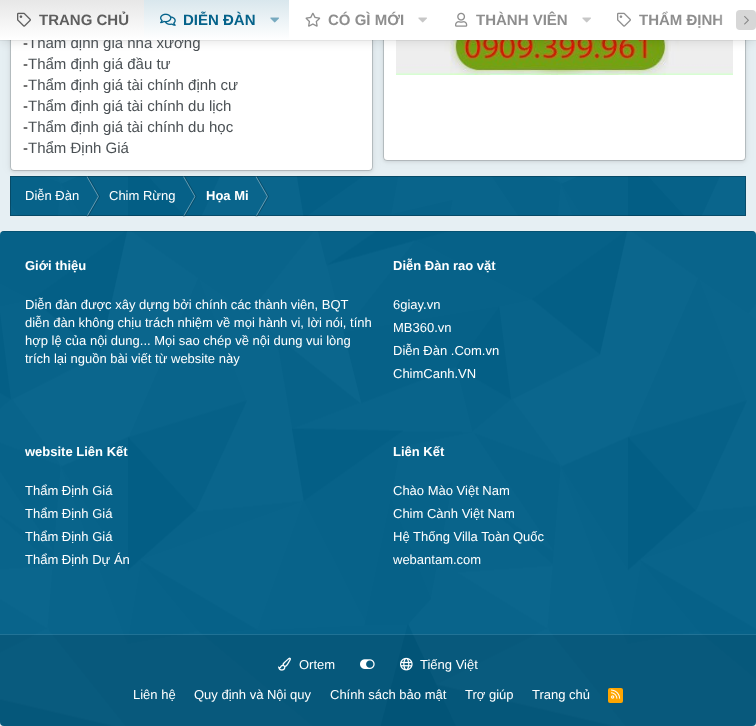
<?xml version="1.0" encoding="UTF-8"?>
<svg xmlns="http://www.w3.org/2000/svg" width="756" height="726">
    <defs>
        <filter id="blur1" x="-50%" y="-200%" width="200%" height="500%"><feGaussianBlur stdDeviation="1.5"/></filter>
        <filter id="blur2" x="-50%" y="-200%" width="200%" height="500%"><feGaussianBlur stdDeviation="4"/></filter>
        <filter id="blur3" x="-50%" y="-200%" width="200%" height="500%"><feGaussianBlur stdDeviation="5"/></filter>
        <linearGradient id="g1" gradientUnits="userSpaceOnUse" x1="72" y1="0" x2="72" y2="40"><stop offset="0" stop-color="#E7E7E7"/><stop offset="1" stop-color="#FFFFFF"/></linearGradient>
        <linearGradient id="g2" gradientUnits="userSpaceOnUse" x1="217" y1="0" x2="217" y2="40"><stop offset="0" stop-color="#D9E7ED"/><stop offset="1" stop-color="#FFFFFF"/></linearGradient>
        <linearGradient id="g3" gradientUnits="userSpaceOnUse" x1="716" y1="20" x2="756" y2="20"><stop offset="0" stop-color="#FFFFFF" stop-opacity="0"/><stop offset="0.6" stop-color="#FFFFFF"/></linearGradient>
    </defs>
    <rect width="100%" height="100%" fill="#EDEDED"/>
    <rect x="0" y="40" width="756" height="191" fill="#E6EFF3"/>
    <rect x="10" y="-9" width="363" height="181" rx="4" fill="#000000" fill-opacity="0.08" filter="url(#blur1)"/>
    <rect x="10" y="-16" width="363" height="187" rx="4" fill="#000000" fill-opacity="0.06" filter="url(#blur2)"/>
    <rect x="11" y="-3" width="361" height="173" rx="3" fill="#FFFFFF"/>
    <rect x="10.5" y="-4.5" width="362" height="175" rx="3.5" fill="none" stroke="#000000" stroke-opacity="0.15"/>
    <rect x="383" y="-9" width="363" height="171" rx="4" fill="#000000" fill-opacity="0.08" filter="url(#blur1)"/>
    <rect x="383" y="-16" width="363" height="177" rx="4" fill="#000000" fill-opacity="0.06" filter="url(#blur2)"/>
    <rect x="384" y="-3" width="361" height="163" rx="3" fill="#FFFFFF"/>
    <rect x="383.5" y="-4.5" width="362" height="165" rx="3.5" fill="none" stroke="#000000" stroke-opacity="0.15"/>
    <image x="396" y="40" width="337" height="35" href="img_09.png"/>
    <rect x="0" y="40" width="756" height="1" fill="#000000" fill-opacity="0.05"/>
    <rect x="0" y="2" width="756" height="40" fill="#000000" fill-opacity="0.1" filter="url(#blur3)"/>
    <rect x="289" y="0" width="451" height="40" fill="#FFFFFF"/>
    <text x="28" y="48" font-family="Liberation Sans" font-size="15" fill="#4A5054">Thẩm định giá nhà xưởng</text>
    <rect x="0" y="0" width="144" height="40" fill="url(#g1)"/>
    <image x="17" y="12" width="14" height="15" href="img_01.png"/>
    <text x="39" y="25" font-family="Liberation Sans" font-size="15" font-weight="700" fill="#5E5E5E">TRANG CHỦ</text>
    <rect x="144" y="0" width="145" height="40" fill="url(#g2)"/>
    <image x="160" y="13" width="16" height="13" href="img_02.png"/>
    <text x="183" y="25" font-family="Liberation Sans" font-size="15" font-weight="700" fill="#04628A">DIỄN ĐÀN</text>
    <image x="270" y="17" width="9" height="6" href="img_03.png"/>
    <image x="305" y="12" width="16" height="15" href="img_04.png"/>
    <text x="328" y="25" font-family="Liberation Sans" font-size="15" font-weight="700" fill="#8E8E8E">CÓ GÌ MỚI</text>
    <image x="418" y="17" width="9" height="6" href="img_05.png"/>
    <image x="455" y="12" width="13" height="15" href="img_06.png"/>
    <text x="476" y="25" font-family="Liberation Sans" font-size="15" font-weight="700" fill="#8E8E8E">THÀNH VIÊN</text>
    <image x="582" y="17" width="9" height="6" href="img_05.png"/>
    <image x="617" y="12" width="14" height="15" href="img_07.png"/>
    <text x="639" y="25" font-family="Liberation Sans" font-size="15" font-weight="700" fill="#8E8E8E">THẨM ĐỊNH</text>
    <rect x="717" y="0" width="39" height="40" fill="url(#g3)"/>
    <rect x="736" y="10" width="20" height="20" rx="4" fill="#5E5E5E" fill-opacity="0.25"/>
    <image x="744" y="16" width="5" height="9" href="img_08.png"/>
    <text font-family="Liberation Sans" font-size="15" fill="#090A0A">
        <tspan x="23" y="48">-</tspan>
        <tspan x="23" y="69">-</tspan>
    </text>
    <text x="28" y="69" font-family="Liberation Sans" font-size="15" fill="#4A5054">Thẩm định giá đầu tư</text>
    <text x="23" y="90" font-family="Liberation Sans" font-size="15" fill="#090A0A">-</text>
    <text x="28" y="90" font-family="Liberation Sans" font-size="15" fill="#4A5054">Thẩm định giá tài chính định cư</text>
    <text x="23" y="111" font-family="Liberation Sans" font-size="15" fill="#090A0A">-</text>
    <text x="28" y="111" font-family="Liberation Sans" font-size="15" fill="#4A5054">Thẩm định giá tài chính du lịch</text>
    <text x="23" y="132" font-family="Liberation Sans" font-size="15" fill="#090A0A">-</text>
    <text x="28" y="132" font-family="Liberation Sans" font-size="15" fill="#4A5054">Thẩm định giá tài chính du học</text>
    <text x="23" y="153" font-family="Liberation Sans" font-size="15" fill="#090A0A">-</text>
    <text x="28" y="153" font-family="Liberation Sans" font-size="15" fill="#4A5054">Thẩm Định Giá</text>
    <rect x="10" y="176" width="736" height="40" fill="#04628A"/>
    <image x="10" y="176" width="736" height="40" href="img_10.png"/>
    <path d="M 86.5 176.5 H 87.5 L 99 196.5 H 98 Z" fill="#6BA1B9"/>
    <path d="M 87.5 176.5 H 88.5 L 100 196.5 H 99 Z" fill="#000000" fill-opacity="0.25"/>
    <path d="M 98 196.5 H 99 L 87.5 216.5 H 86.5 Z" fill="#6BA1B9"/>
    <path d="M 99 196.5 H 100 L 88.5 216.5 H 87.5 Z" fill="#000000" fill-opacity="0.25"/>
    <path d="M 183 176.5 H 184 L 195.5 196.5 H 194.5 Z" fill="#6AA1B8"/>
    <path d="M 184 176.5 H 185 L 196.5 196.5 H 195.5 Z" fill="#000000" fill-opacity="0.25"/>
    <path d="M 194.5 196.5 H 195.5 L 184 216.5 H 183 Z" fill="#6AA1B8"/>
    <path d="M 195.5 196.5 H 196.5 L 185 216.5 H 184 Z" fill="#000000" fill-opacity="0.25"/>
    <path d="M 255.5 176.5 H 256.5 L 268 196.5 H 267 Z" fill="#6DA3BA"/>
    <path d="M 256.5 176.5 H 257.5 L 269 196.5 H 268 Z" fill="#000000" fill-opacity="0.25"/>
    <path d="M 267 196.5 H 268 L 256.5 216.5 H 255.5 Z" fill="#6DA3BA"/>
    <path d="M 268 196.5 H 269 L 257.5 216.5 H 256.5 Z" fill="#000000" fill-opacity="0.25"/>
    <rect x="10.5" y="176.5" width="735" height="39" fill="none" stroke="#020303" stroke-opacity="0.25"/>
    <text x="25" y="200" font-family="Liberation Sans" font-size="13" fill="#FFFFFF">Diễn Đàn</text>
    <text x="109" y="200" font-family="Liberation Sans" font-size="13" fill="#FFFFFF">Chim Rừng</text>
    <text x="206" y="200" font-family="Liberation Sans" font-size="13" font-weight="700" fill="#FFFFFF">Họa Mi</text>
    <rect x="0" y="231" width="756" height="495" rx="4" fill="#04628A"/>
    <image x="0" y="231" width="756" height="495" href="img_11.png"/>
    <rect x="2" y="231" width="752" height="1" fill="#000000" fill-opacity="0.15"/>
    <rect x="0" y="634" width="756" height="1" fill="#FFFFFF" fill-opacity="0.1"/>
    <text x="25" y="270" font-family="Liberation Sans" font-size="13" font-weight="700" fill="#FFFFFF">Giới thiệu</text>
    <text font-family="Liberation Sans" font-size="13" fill="#FFFFFF">
        <tspan x="25" y="309">Diễn đàn được xây dựng bởi chính các thành viên, BQT</tspan>
        <tspan x="25" y="327">diễn đàn không chịu trách nhiệm về mọi hành vi, lời nói, tính</tspan>
        <tspan x="25" y="345">hợp lệ của nội dung... Mọi sao chép về nội dung vui lòng</tspan>
        <tspan x="25" y="363">trích lại nguồn bài viết từ website này</tspan>
    </text>
    <text x="393" y="270" font-family="Liberation Sans" font-size="13" font-weight="700" fill="#FFFFFF">Diễn Đàn rao vặt</text>
    <text font-family="Liberation Sans" font-size="13" fill="#FFFFFF">
        <tspan x="393" y="309">6giay.vn</tspan>
        <tspan x="393" y="332">MB360.vn</tspan>
        <tspan x="393" y="355">Diễn Đàn .Com.vn</tspan>
        <tspan x="393" y="378">ChimCanh.VN</tspan>
    </text>
    <text x="25" y="456" font-family="Liberation Sans" font-size="13" font-weight="700" fill="#FFFFFF">website Liên Kết</text>
    <text font-family="Liberation Sans" font-size="13" fill="#FFFFFF">
        <tspan x="25" y="495">Thẩm Định Giá</tspan>
        <tspan x="25" y="518">Thẩm Định Giá</tspan>
        <tspan x="25" y="541">Thẩm Định Giá</tspan>
        <tspan x="25" y="564">Thẩm Định Dự Án</tspan>
    </text>
    <text x="393" y="456" font-family="Liberation Sans" font-size="13" font-weight="700" fill="#FFFFFF">Liên Kết</text>
    <text font-family="Liberation Sans" font-size="13" fill="#FFFFFF">
        <tspan x="393" y="495">Chào Mào Việt Nam</tspan>
        <tspan x="393" y="518">Chim Cành Việt Nam</tspan>
        <tspan x="393" y="541">Hệ Thống Villa Toàn Quốc</tspan>
        <tspan x="393" y="564">webantam.com</tspan>
    </text>
    <path d="M 0 635 H 756 V 722 C 756 724 754 726 752 726 H 4 C 2 726 0 724 0 722 Z" fill="#000000" fill-opacity="0.1"/>
    <image x="278" y="657" width="13" height="14" href="img_12.png"/>
    <text x="299" y="669" font-family="Liberation Sans" font-size="13" fill="#FFFFFF">Ortem</text>
    <image x="360" y="659" width="15" height="10" href="img_13.png"/>
    <image x="400" y="657" width="13" height="14" href="img_14.png"/>
    <text x="420" y="669" font-family="Liberation Sans" font-size="13" fill="#FFFFFF">Tiếng Việt</text>
    <text x="133" y="699" font-family="Liberation Sans" font-size="13" fill="#FFFFFF">Liên hệ</text>
    <text x="194" y="699" font-family="Liberation Sans" font-size="13" fill="#FFFFFF">Quy định và Nội quy</text>
    <text x="330" y="699" font-family="Liberation Sans" font-size="13" fill="#FFFFFF">Chính sách bảo mật</text>
    <text x="465" y="699" font-family="Liberation Sans" font-size="13" fill="#FFFFFF">Trợ giúp</text>
    <text x="532" y="699" font-family="Liberation Sans" font-size="13" fill="#FFFFFF">Trang chủ</text>
    <rect x="608" y="688" width="15" height="15" rx="2" fill="#FFA500"/>
    <image x="611" y="689" width="10" height="10" href="img_15.png"/>
</svg>
